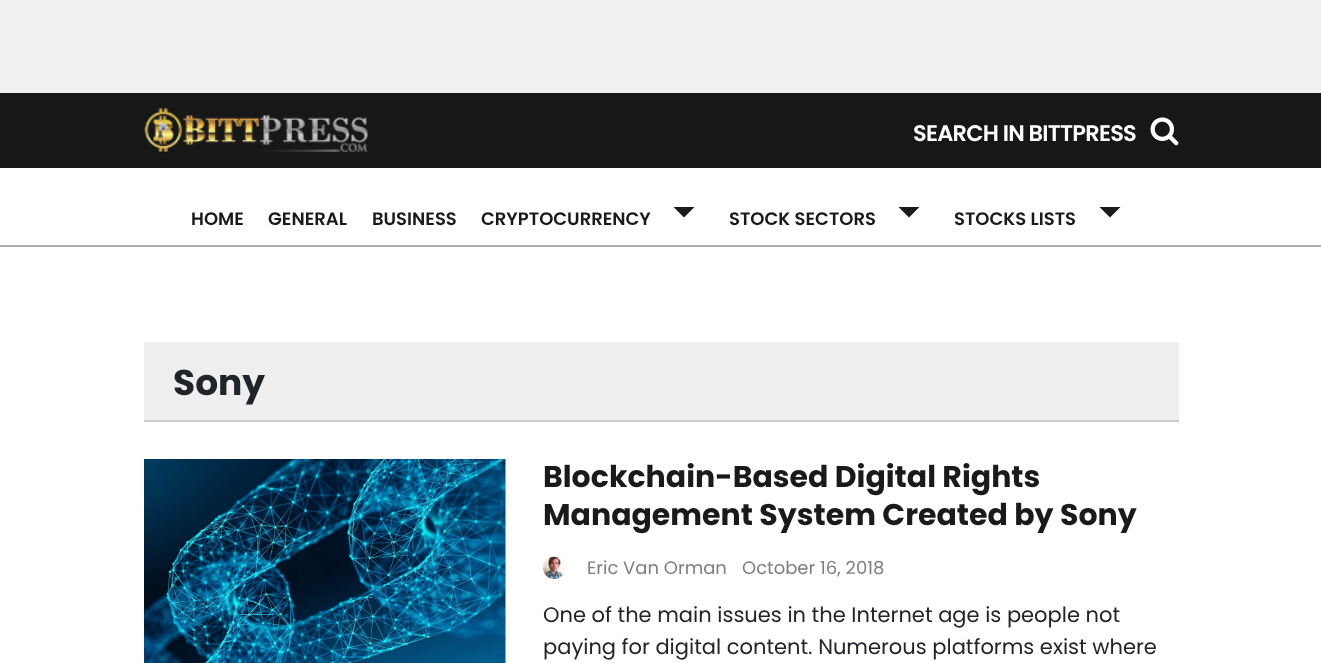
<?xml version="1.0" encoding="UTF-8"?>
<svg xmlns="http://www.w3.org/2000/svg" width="1321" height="663">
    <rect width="100%" height="100%" fill="#FFFFFF"/>
    <rect x="0" y="0" width="1321" height="93" fill="#F0F0F0"/>
    <rect x="0" y="93" width="1321" height="75" fill="#171717"/>
    <image x="144" y="108" width="224" height="45" href="img_01.png"/>
    <text x="913" y="141" font-family="Poppins" font-size="22.5" font-weight="600" letter-spacing="-0.75" fill="#FFFFFF">SEARCH IN BITTPRESS</text>
    <image x="1150" y="117" width="29" height="29" href="img_02.png"/>
    <rect x="0" y="245" width="1321" height="2" fill="#ADADAD"/>
    <text x="191" y="225" font-family="Poppins" font-size="18" font-weight="600" fill="#1A1A1A">HOME</text>
    <text x="268" y="225" font-family="Poppins" font-size="18" font-weight="600" fill="#1A1A1A">GENERAL</text>
    <text x="372" y="225" font-family="Poppins" font-size="18" font-weight="600" fill="#1A1A1A">BUSINESS</text>
    <text x="481" y="225" font-family="Poppins" font-size="18" font-weight="600" fill="#1A1A1A">CRYPTOCURRENCY</text>
    <path d="M 673.5 207 H 694.5 L 684 217.5 Z" fill="#1A1A1A"/>
    <text x="729" y="225" font-family="Poppins" font-size="18" font-weight="600" fill="#1A1A1A">STOCK SECTORS</text>
    <path d="M 898.5 207 H 919.5 L 909 217.5 Z" fill="#1A1A1A"/>
    <text x="954" y="225" font-family="Poppins" font-size="18" font-weight="600" fill="#1A1A1A">STOCKS LISTS</text>
    <path d="M 1099.5 207 H 1120.5 L 1110 217.5 Z" fill="#1A1A1A"/>
    <rect x="144" y="342" width="1035" height="78" fill="#EFEFEF"/>
    <rect x="144" y="420" width="1035" height="2" fill="#CCCCCC"/>
    <text x="173" y="395" font-family="Poppins" font-size="36" font-weight="700" fill="#212529">Sony</text>
    <image x="144" y="459" width="362" height="204" href="img_03.png"/>
    <text font-family="Poppins" font-size="30" font-weight="700" fill="#1A1A1A">
        <tspan x="543" y="487">Blockchain-Based Digital Rights</tspan>
        <tspan x="543" y="525">Management System Created by Sony</tspan>
    </text>
    <image x="543" y="556" width="22" height="23" href="img_04.png"/>
    <text x="587" y="574" font-family="Poppins" font-size="18" fill="#7E7E7E">Eric Van Orman</text>
    <text x="742" y="574" font-family="Poppins" font-size="18" fill="#7E7E7E">October 16, 2018</text>
    <text font-family="Poppins" font-size="21" fill="#212529">
        <tspan x="543" y="622">One of the main issues in the Internet age is people not</tspan>
        <tspan x="543" y="654">paying for digital content. Numerous platforms exist where</tspan>
    </text>
</svg>
